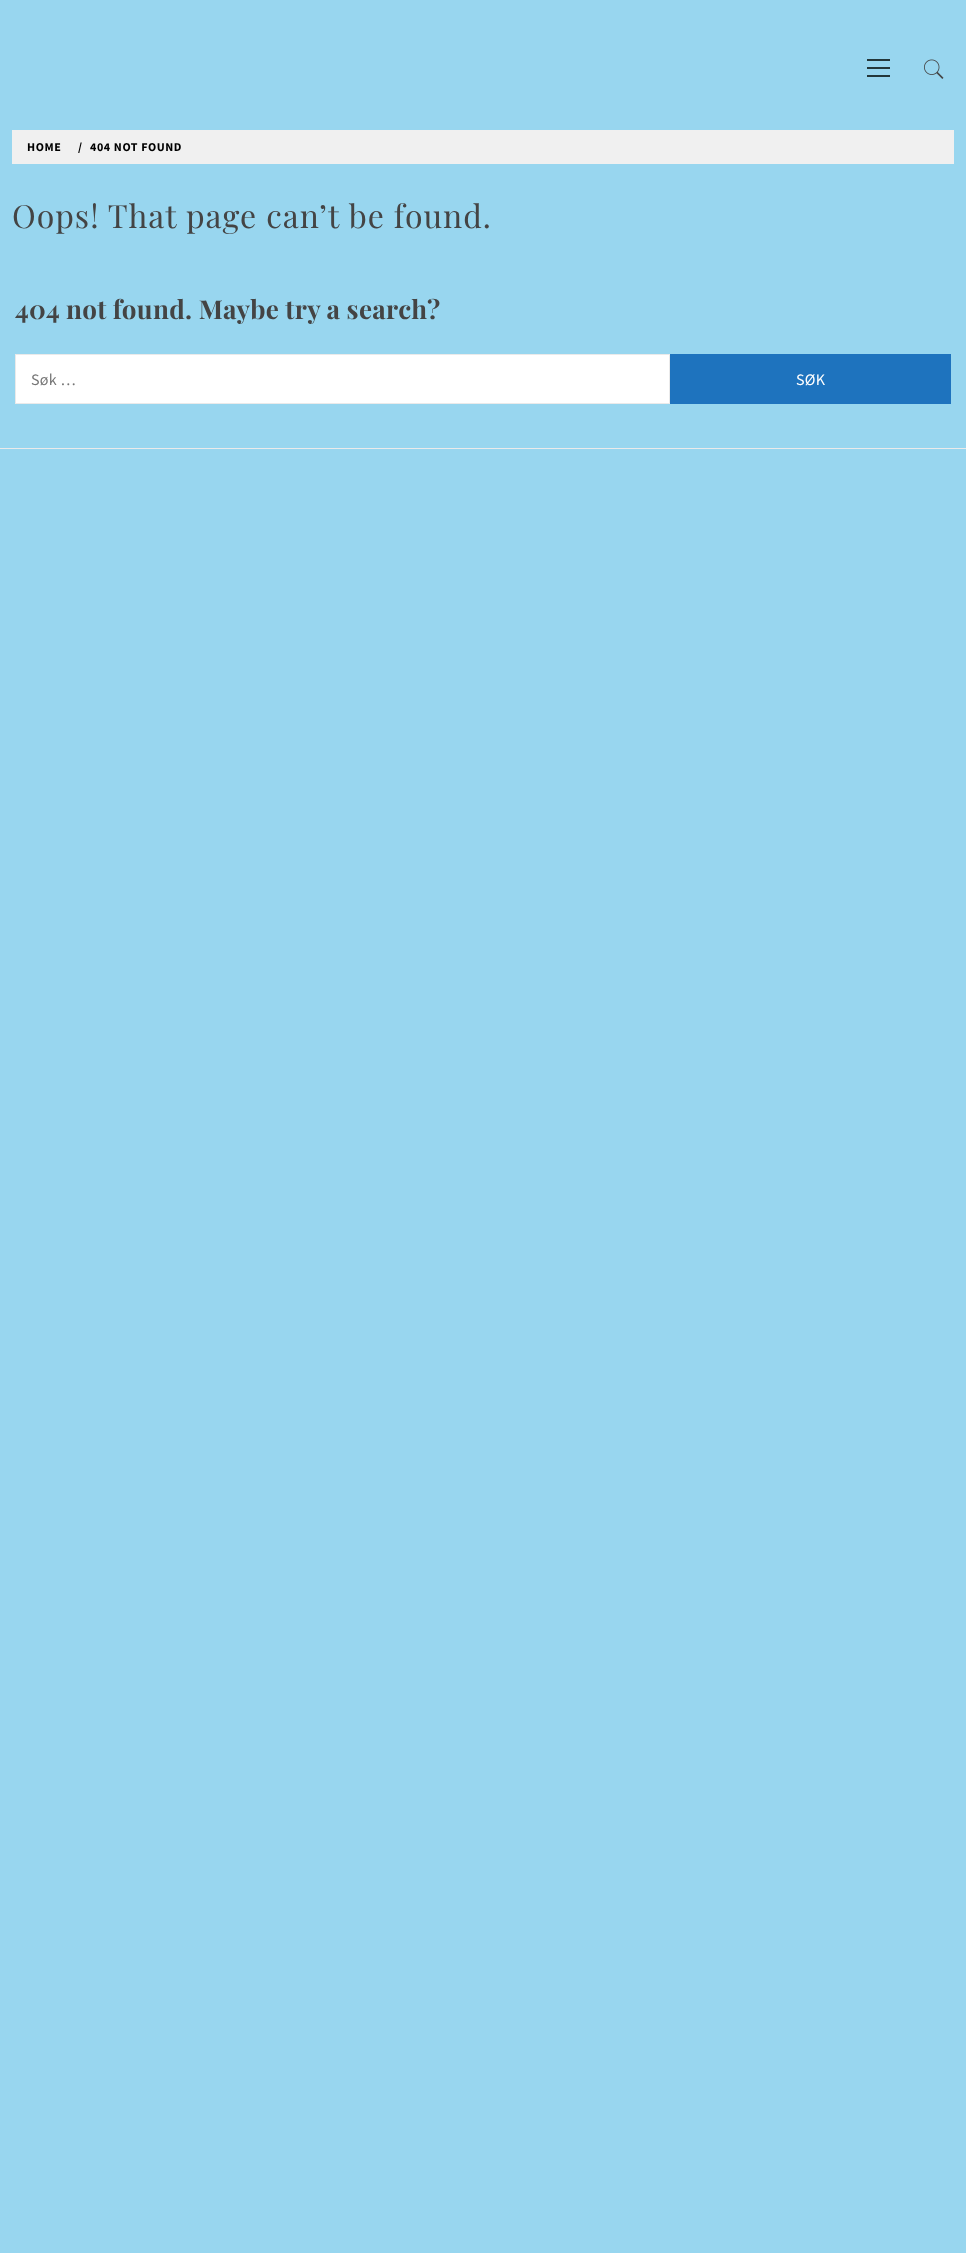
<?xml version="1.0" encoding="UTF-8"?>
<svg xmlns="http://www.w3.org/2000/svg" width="966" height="2253">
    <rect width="100%" height="100%" fill="#98D6EF"/>
    <rect x="867" y="67" width="23" height="2" fill="#23373A"/>
    <rect x="867" y="59" width="23" height="2" fill="#23373A"/>
    <rect x="867" y="75" width="23" height="2" fill="#23373A"/>
    <image x="924" y="59" width="20" height="20" href="img_01.png"/>
    <rect x="12" y="130" width="942" height="34" fill="#F0F0F0"/>
    <text x="27" y="151" font-family="Source Sans Pro" font-size="12" font-weight="700" letter-spacing="0.6" fill="#000000">HOME</text>
    <text x="78" y="151" font-family="Source Sans Pro" font-size="12" font-weight="700" letter-spacing="0.6" fill="#000000">/</text>
    <text x="90" y="151" font-family="Source Sans Pro" font-size="12" font-weight="700" letter-spacing="0.6" fill="#000000">404 NOT FOUND</text>
    <text x="12" y="228" font-family="Playfair Display" font-size="32" letter-spacing="1" fill="#444444">Oops! That page can’t be found.</text>
    <text x="15" y="319" font-family="Playfair Display" font-size="26" font-weight="700" letter-spacing="0.3" fill="#444444">404 not found. Maybe try a search?</text>
    <rect x="15.5" y="354.5" width="654" height="49" fill="#FFFFFF" stroke="#EAEAEA"/>
    <text x="31" y="385" font-family="Source Sans Pro" font-size="16" letter-spacing="0.3" fill="#757575">Søk …</text>
    <rect x="670" y="354" width="281" height="50" fill="#1E73BE"/>
    <text x="796" y="385" font-family="Source Sans Pro" font-size="16" letter-spacing="0.3" fill="#FFFFFF">SØK</text>
    <rect x="0" y="448" width="966" height="1" fill="#EAEAEA"/>
</svg>
